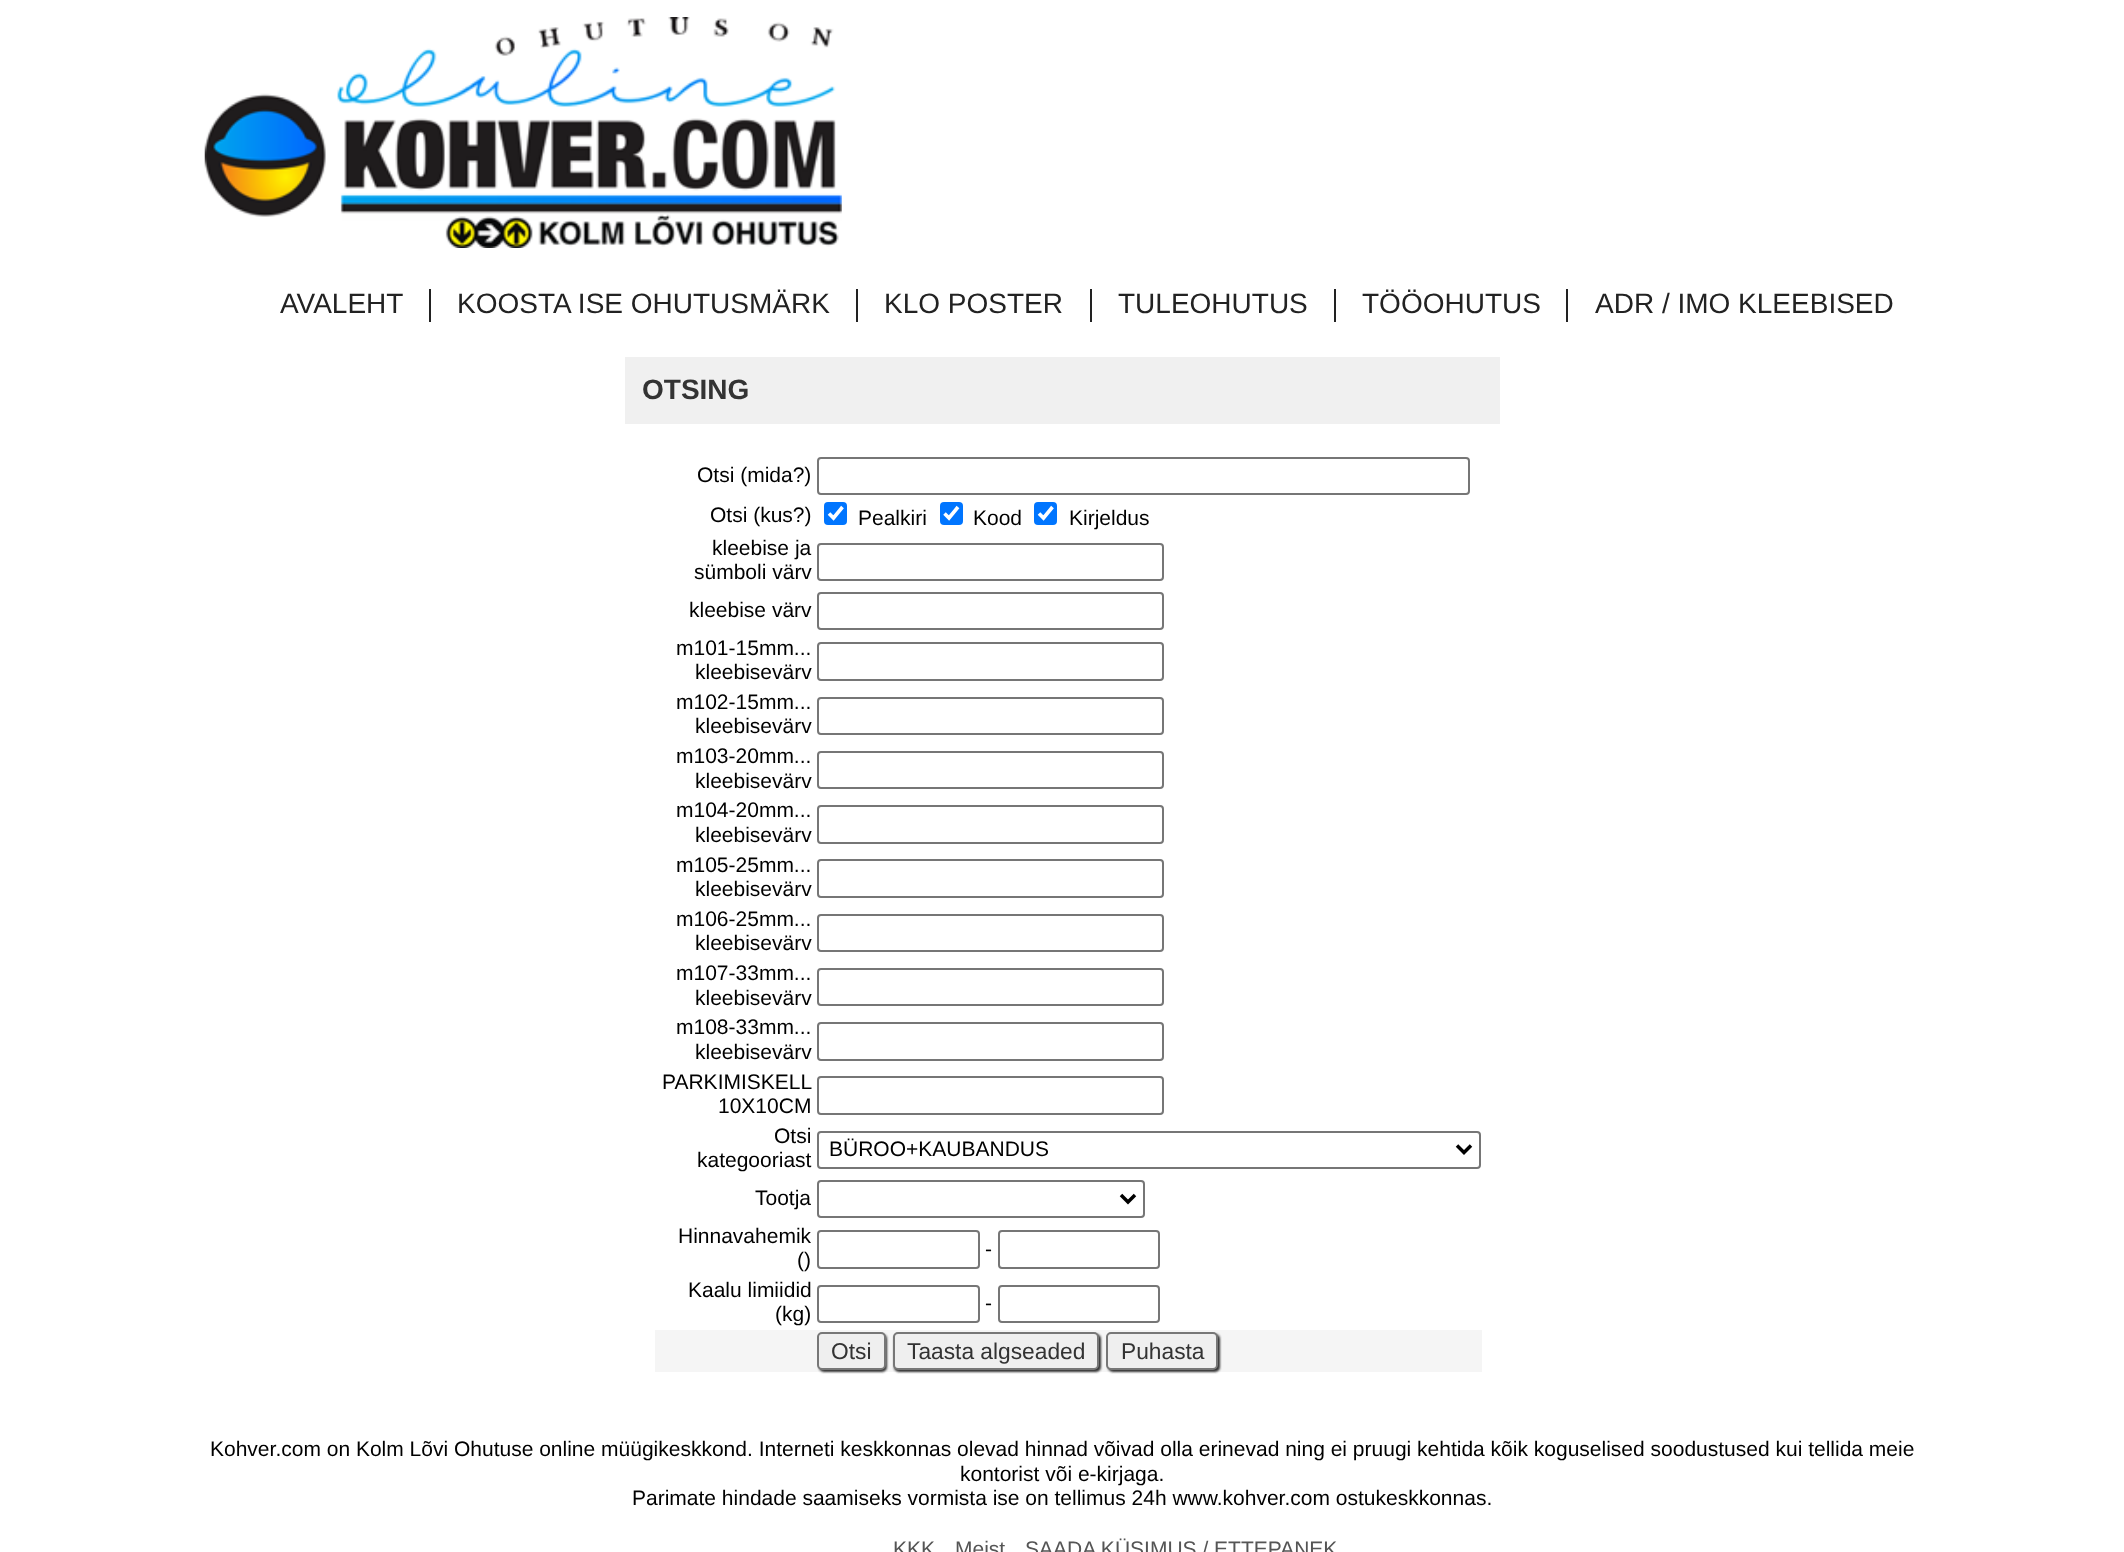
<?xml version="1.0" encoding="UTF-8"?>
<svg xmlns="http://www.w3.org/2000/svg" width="2124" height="1552">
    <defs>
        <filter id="blur1" x="-50%" y="-200%" width="200%" height="500%"><feGaussianBlur stdDeviation="1"/></filter>
    </defs>
    <rect width="100%" height="100%" fill="#FFFFFF"/>
    <image x="204" y="17" width="638" height="231" href="img_01.png"/>
    <rect x="429" y="289" width="2" height="33" fill="#222222"/>
    <text x="280" y="313" font-family="Liberation Sans" font-size="28" fill="#222222">AVALEHT</text>
    <rect x="856" y="289" width="2" height="33" fill="#222222"/>
    <text x="457" y="313" font-family="Liberation Sans" font-size="28" fill="#222222">KOOSTA ISE OHUTUSMÄRK</text>
    <rect x="1090" y="289" width="2" height="33" fill="#222222"/>
    <text x="884" y="313" font-family="Liberation Sans" font-size="28" fill="#222222">KLO POSTER</text>
    <rect x="1334" y="289" width="2" height="33" fill="#222222"/>
    <text x="1118" y="313" font-family="Liberation Sans" font-size="28" fill="#222222">TULEOHUTUS</text>
    <rect x="1566" y="289" width="2" height="33" fill="#222222"/>
    <text x="1362" y="313" font-family="Liberation Sans" font-size="28" fill="#222222">TÖÖOHUTUS</text>
    <text x="1595" y="313" font-family="Liberation Sans" font-size="28" fill="#222222">ADR / IMO KLEEBISED</text>
    <rect x="625" y="357" width="875" height="67" fill="#F0F0F0"/>
    <text x="642" y="399" font-family="Liberation Sans" font-size="28" font-weight="700" fill="#333333">OTSING</text>
    <text x="697" y="482" font-family="Liberation Sans" font-size="21" fill="#000000">Otsi (mida?)</text>
    <rect x="818" y="458" width="651" height="36" rx="3" fill="none" stroke="#767676" stroke-width="2"/>
    <text x="710" y="522" font-family="Liberation Sans" font-size="21" fill="#000000">Otsi (kus?)</text>
    <rect x="824" y="502" width="23" height="23" rx="4" fill="#0075FF"/>
    <path d="M 829 513.5 L 833.5 518 L 842.5 507" fill="none" stroke="#FFFFFF" stroke-width="3.6"/>
    <text x="858" y="525" font-family="Liberation Sans" font-size="21" fill="#000000">Pealkiri</text>
    <rect x="940" y="502" width="23" height="23" rx="4" fill="#0075FF"/>
    <path d="M 944.5 513.5 L 949 518 L 958 507" fill="none" stroke="#FFFFFF" stroke-width="3.6"/>
    <text x="973" y="525" font-family="Liberation Sans" font-size="21" fill="#000000">Kood</text>
    <rect x="1034" y="502" width="23" height="23" rx="4" fill="#0075FF"/>
    <path d="M 1039 513.5 L 1043.5 518 L 1052.5 507" fill="none" stroke="#FFFFFF" stroke-width="3.6"/>
    <text x="1069" y="525" font-family="Liberation Sans" font-size="21" fill="#000000">Kirjeldus</text>
    <text x="712" y="555" font-family="Liberation Sans" font-size="21" fill="#000000">kleebise ja</text>
    <text x="694" y="579" font-family="Liberation Sans" font-size="21" fill="#000000">sümboli värv</text>
    <rect x="818" y="544" width="345" height="36" rx="3" fill="none" stroke="#767676" stroke-width="2"/>
    <text x="689" y="617" font-family="Liberation Sans" font-size="21" fill="#000000">kleebise värv</text>
    <rect x="818" y="593" width="345" height="36" rx="3" fill="none" stroke="#767676" stroke-width="2"/>
    <text x="676" y="655" font-family="Liberation Sans" font-size="21" fill="#000000">m101-15mm...</text>
    <text x="695" y="679" font-family="Liberation Sans" font-size="21" fill="#000000">kleebisevärv</text>
    <rect x="818" y="643" width="345" height="37" rx="3" fill="none" stroke="#767676" stroke-width="2"/>
    <text x="676" y="709" font-family="Liberation Sans" font-size="21" fill="#000000">m102-15mm...</text>
    <text x="695" y="733" font-family="Liberation Sans" font-size="21" fill="#000000">kleebisevärv</text>
    <rect x="818" y="698" width="345" height="36" rx="3" fill="none" stroke="#767676" stroke-width="2"/>
    <text x="676" y="763" font-family="Liberation Sans" font-size="21" fill="#000000">m103-20mm...</text>
    <text x="695" y="788" font-family="Liberation Sans" font-size="21" fill="#000000">kleebisevärv</text>
    <rect x="818" y="752" width="345" height="36" rx="3" fill="none" stroke="#767676" stroke-width="2"/>
    <text x="676" y="817" font-family="Liberation Sans" font-size="21" fill="#000000">m104-20mm...</text>
    <text x="695" y="842" font-family="Liberation Sans" font-size="21" fill="#000000">kleebisevärv</text>
    <rect x="818" y="806" width="345" height="37" rx="3" fill="none" stroke="#767676" stroke-width="2"/>
    <text x="676" y="872" font-family="Liberation Sans" font-size="21" fill="#000000">m105-25mm...</text>
    <text x="695" y="896" font-family="Liberation Sans" font-size="21" fill="#000000">kleebisevärv</text>
    <rect x="818" y="860" width="345" height="37" rx="3" fill="none" stroke="#767676" stroke-width="2"/>
    <text x="676" y="926" font-family="Liberation Sans" font-size="21" fill="#000000">m106-25mm...</text>
    <text x="695" y="950" font-family="Liberation Sans" font-size="21" fill="#000000">kleebisevärv</text>
    <rect x="818" y="915" width="345" height="36" rx="3" fill="none" stroke="#767676" stroke-width="2"/>
    <text x="676" y="980" font-family="Liberation Sans" font-size="21" fill="#000000">m107-33mm...</text>
    <text x="695" y="1005" font-family="Liberation Sans" font-size="21" fill="#000000">kleebisevärv</text>
    <rect x="818" y="969" width="345" height="36" rx="3" fill="none" stroke="#767676" stroke-width="2"/>
    <text x="676" y="1034" font-family="Liberation Sans" font-size="21" fill="#000000">m108-33mm...</text>
    <text x="695" y="1059" font-family="Liberation Sans" font-size="21" fill="#000000">kleebisevärv</text>
    <rect x="818" y="1023" width="345" height="37" rx="3" fill="none" stroke="#767676" stroke-width="2"/>
    <text x="662" y="1089" font-family="Liberation Sans" font-size="21" fill="#000000">PARKIMISKELL</text>
    <text x="718" y="1113" font-family="Liberation Sans" font-size="21" fill="#000000">10X10CM</text>
    <rect x="818" y="1077" width="345" height="37" rx="3" fill="none" stroke="#767676" stroke-width="2"/>
    <text x="774" y="1143" font-family="Liberation Sans" font-size="21" fill="#000000">Otsi</text>
    <text x="697" y="1167" font-family="Liberation Sans" font-size="21" fill="#000000">kategooriast</text>
    <rect x="818" y="1132" width="662" height="36" rx="3" fill="none" stroke="#767676" stroke-width="2"/>
    <path d="M 1457 1145.5 L 1464 1152.5 L 1471 1145.5" fill="none" stroke="#000000" stroke-width="3.5"/>
    <text x="829" y="1156" font-family="Liberation Sans" font-size="21" fill="#000000">BÜROO+KAUBANDUS</text>
    <text x="755" y="1205" font-family="Liberation Sans" font-size="21" fill="#000000">Tootja</text>
    <rect x="818" y="1181" width="326" height="36" rx="3" fill="none" stroke="#767676" stroke-width="2"/>
    <path d="M 1121 1195 L 1128 1202 L 1135 1195" fill="none" stroke="#000000" stroke-width="3.5"/>
    <text x="678" y="1243" font-family="Liberation Sans" font-size="21" fill="#000000">Hinnavahemik</text>
    <text x="797" y="1267" font-family="Liberation Sans" font-size="21" fill="#000000">()</text>
    <rect x="818" y="1231" width="161" height="37" rx="3" fill="none" stroke="#767676" stroke-width="2"/>
    <text x="985" y="1256" font-family="Liberation Sans" font-size="21" fill="#000000">-</text>
    <rect x="999" y="1231" width="160" height="37" rx="3" fill="none" stroke="#767676" stroke-width="2"/>
    <text x="688" y="1297" font-family="Liberation Sans" font-size="21" fill="#000000">Kaalu limiidid</text>
    <text x="775" y="1321" font-family="Liberation Sans" font-size="21" fill="#000000">(kg)</text>
    <rect x="818" y="1286" width="161" height="36" rx="3" fill="none" stroke="#767676" stroke-width="2"/>
    <text x="985" y="1310" font-family="Liberation Sans" font-size="21" fill="#000000">-</text>
    <rect x="999" y="1286" width="160" height="36" rx="3" fill="none" stroke="#767676" stroke-width="2"/>
    <rect x="655" y="1330" width="827" height="42" fill="#F5F5F5"/>
    <rect x="819" y="1334" width="68" height="38" rx="5" fill="#333333" filter="url(#blur1)"/>
    <rect x="818" y="1333" width="67" height="36" rx="4" fill="#EFEFEF" stroke="#777777" stroke-width="2"/>
    <text x="831" y="1359" font-family="Liberation Sans" font-size="22.75" fill="#333333">Otsi</text>
    <rect x="894" y="1334" width="207" height="38" rx="5" fill="#333333" filter="url(#blur1)"/>
    <rect x="894" y="1333" width="204" height="36" rx="4" fill="#EFEFEF" stroke="#777777" stroke-width="2"/>
    <text x="907" y="1359" font-family="Liberation Sans" font-size="22.75" fill="#333333">Taasta algseaded</text>
    <rect x="1108" y="1334" width="112" height="38" rx="5" fill="#333333" filter="url(#blur1)"/>
    <rect x="1107" y="1333" width="110" height="36" rx="4" fill="#EFEFEF" stroke="#777777" stroke-width="2"/>
    <text x="1121" y="1359" font-family="Liberation Sans" font-size="22.75" fill="#333333">Puhasta</text>
    <text x="210" y="1456" font-family="Liberation Sans" font-size="21" fill="#000000">Kohver.com on Kolm Lõvi Ohutuse online müügikeskkond. Interneti keskkonnas olevad hinnad võivad olla erinevad ning ei pruugi kehtida kõik koguselised soodustused kui tellida meie</text>
    <text x="960" y="1481" font-family="Liberation Sans" font-size="21" fill="#000000">kontorist või e-kirjaga.</text>
    <text x="632" y="1505" font-family="Liberation Sans" font-size="21" fill="#000000">Parimate hindade saamiseks vormista ise on tellimus 24h www.kohver.com ostukeskkonnas.</text>
    <text x="893" y="1556" font-family="Liberation Sans" font-size="21" fill="#555555">KKK</text>
    <text x="955" y="1556" font-family="Liberation Sans" font-size="21" fill="#555555">Meist</text>
    <text x="1025" y="1556" font-family="Liberation Sans" font-size="21" fill="#555555">SAADA KÜSIMUS / ETTEPANEK</text>
</svg>
